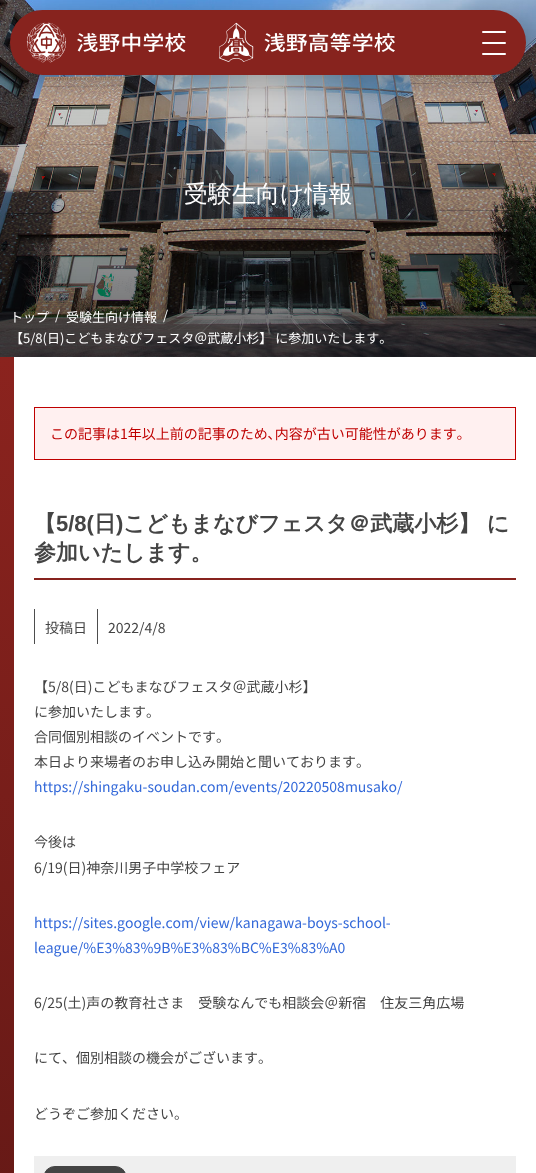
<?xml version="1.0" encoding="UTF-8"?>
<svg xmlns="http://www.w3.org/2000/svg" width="536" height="1173">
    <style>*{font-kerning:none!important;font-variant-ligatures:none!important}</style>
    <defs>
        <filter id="blur1" x="-50%" y="-200%" width="200%" height="500%"><feGaussianBlur stdDeviation="15"/></filter>
        <linearGradient id="g1" gradientUnits="userSpaceOnUse" x1="268" y1="357" x2="268" y2="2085"><stop offset="0" stop-color="#8B231E"/><stop offset="1" stop-color="#400F0E"/></linearGradient>
    </defs>
    <rect width="100%" height="100%" fill="#FFFFFF"/>
    <image x="0" y="0" width="536" height="357" href="img_02.png"/>
    <rect x="10" y="18" width="520" height="69" rx="34.5" fill="#000000" fill-opacity="0.3" filter="url(#blur1)"/>
    <rect x="10" y="10" width="516" height="65" rx="32.5" fill="#87231E"/>
    <image x="26" y="22" width="369" height="41" href="img_01.png"/>
    <rect x="482" y="31" width="24" height="2" rx="1" fill="#FFFFFF"/>
    <rect x="482" y="42" width="24" height="2" rx="1" fill="#FFFFFF"/>
    <rect x="482" y="53" width="24" height="2" rx="1" fill="#FFFFFF"/>
    <text x="184" y="202" font-family="WenQuanYi Zen Hei" font-size="24" font-weight="500" fill="#FFFFFF">受験生向け情報</text>
    <rect x="243" y="217" width="50" height="2" fill="#87231E"/>
    <text x="10" y="322" font-family="Noto Sans JP" font-size="13" fill="#FFFFFF">トップ</text>
    <text x="55" y="320" font-family="Noto Sans JP" font-size="13" fill="#FFFFFF">/</text>
    <text x="66" y="322" font-family="Noto Sans JP" font-size="13" fill="#FFFFFF">受験生向け情報</text>
    <text x="163" y="320" font-family="Noto Sans JP" font-size="13" fill="#FFFFFF">/</text>
    <text x="10" y="343" font-family="Noto Sans JP" font-size="13" fill="#FFFFFF">【5/8(日)こどもまなびフェスタ＠武蔵小杉】 に参加いたします。</text>
    <rect x="0" y="357" width="14" height="816" fill="url(#g1)"/>
    <rect x="34.5" y="407.5" width="481" height="52" fill="#FFF0F0" stroke="#BF0000"/>
    <text x="50" y="439" font-family="Noto Sans JP" font-size="14" fill="#BF0000">この記事は1年以上前の記事のため､内容が古い可能性があります｡</text>
    <rect x="34" y="578" width="482" height="2" fill="#87231E"/>
    <text x="34" y="531" font-family="WenQuanYi Zen Hei" font-size="22" font-weight="700" fill="#444444">【</text>
    <text x="56" y="531" font-family="Liberation Sans" font-size="22" font-weight="700" fill="#444444">5/8(</text>
    <text x="94" y="531" font-family="WenQuanYi Zen Hei" font-size="22" font-weight="700" fill="#444444">日</text>
    <text x="116" y="531" font-family="Liberation Sans" font-size="22" font-weight="700" fill="#444444">)</text>
    <text x="123" y="531" font-family="WenQuanYi Zen Hei" font-size="22" font-weight="700" fill="#444444">こどもまなびフェスタ＠武蔵小杉】 に</text>
    <text x="34" y="560" font-family="WenQuanYi Zen Hei" font-size="22" font-weight="700" fill="#444444">参加いたします。</text>
    <rect x="97" y="609" width="1" height="35" fill="#4D4D4D"/>
    <rect x="34" y="609" width="1" height="35" fill="#4D4D4D"/>
    <text x="45" y="633" font-family="Noto Sans JP" font-size="14" fill="#444444">投稿日</text>
    <text x="108" y="633" font-family="Noto Sans JP" font-size="14" fill="#444444">2022/4/8</text>
    <text font-family="Noto Sans JP" font-size="14" fill="#444444">
        <tspan x="34" y="692">【5/8(日)こどもまなびフェスタ＠武蔵小杉】</tspan>
        <tspan x="34" y="717">に参加いたします。</tspan>
        <tspan x="34" y="742">合同個別相談のイベントです。</tspan>
        <tspan x="34" y="767">本日より来場者のお申し込み開始と聞いております。</tspan>
    </text>
    <text x="34" y="792" font-family="Noto Sans JP" font-size="14" fill="#3268D9">https://shingaku-soudan.com/events/20220508musako/</text>
    <text font-family="Noto Sans JP" font-size="14" fill="#444444">
        <tspan x="34" y="847">今後は</tspan>
        <tspan x="34" y="873">6/19(日)神奈川男子中学校フェア</tspan>
    </text>
    <text font-family="Noto Sans JP" font-size="14" fill="#3268D9">
        <tspan x="34" y="928">https://sites.google.com/view/kanagawa-boys-school-</tspan>
        <tspan x="34" y="953">league/%E3%83%9B%E3%83%BC%E3%83%A0</tspan>
    </text>
    <text x="34" y="1008" font-family="Noto Sans JP" font-size="14" fill="#444444">6/25(土)声の教育社さま　受験なんでも相談会＠新宿　住友三角広場</text>
    <text x="34" y="1063" font-family="Noto Sans JP" font-size="14" fill="#444444">にて、個別相談の機会がございます。</text>
    <text x="34" y="1119" font-family="Noto Sans JP" font-size="14" fill="#444444">どうぞご参加ください。</text>
    <rect x="34" y="1156" width="482" height="17" fill="#EFEFEF"/>
    <rect x="44.5" y="1166.5" width="81" height="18" rx="10.5" fill="#444444" stroke="#444444"/>
</svg>
